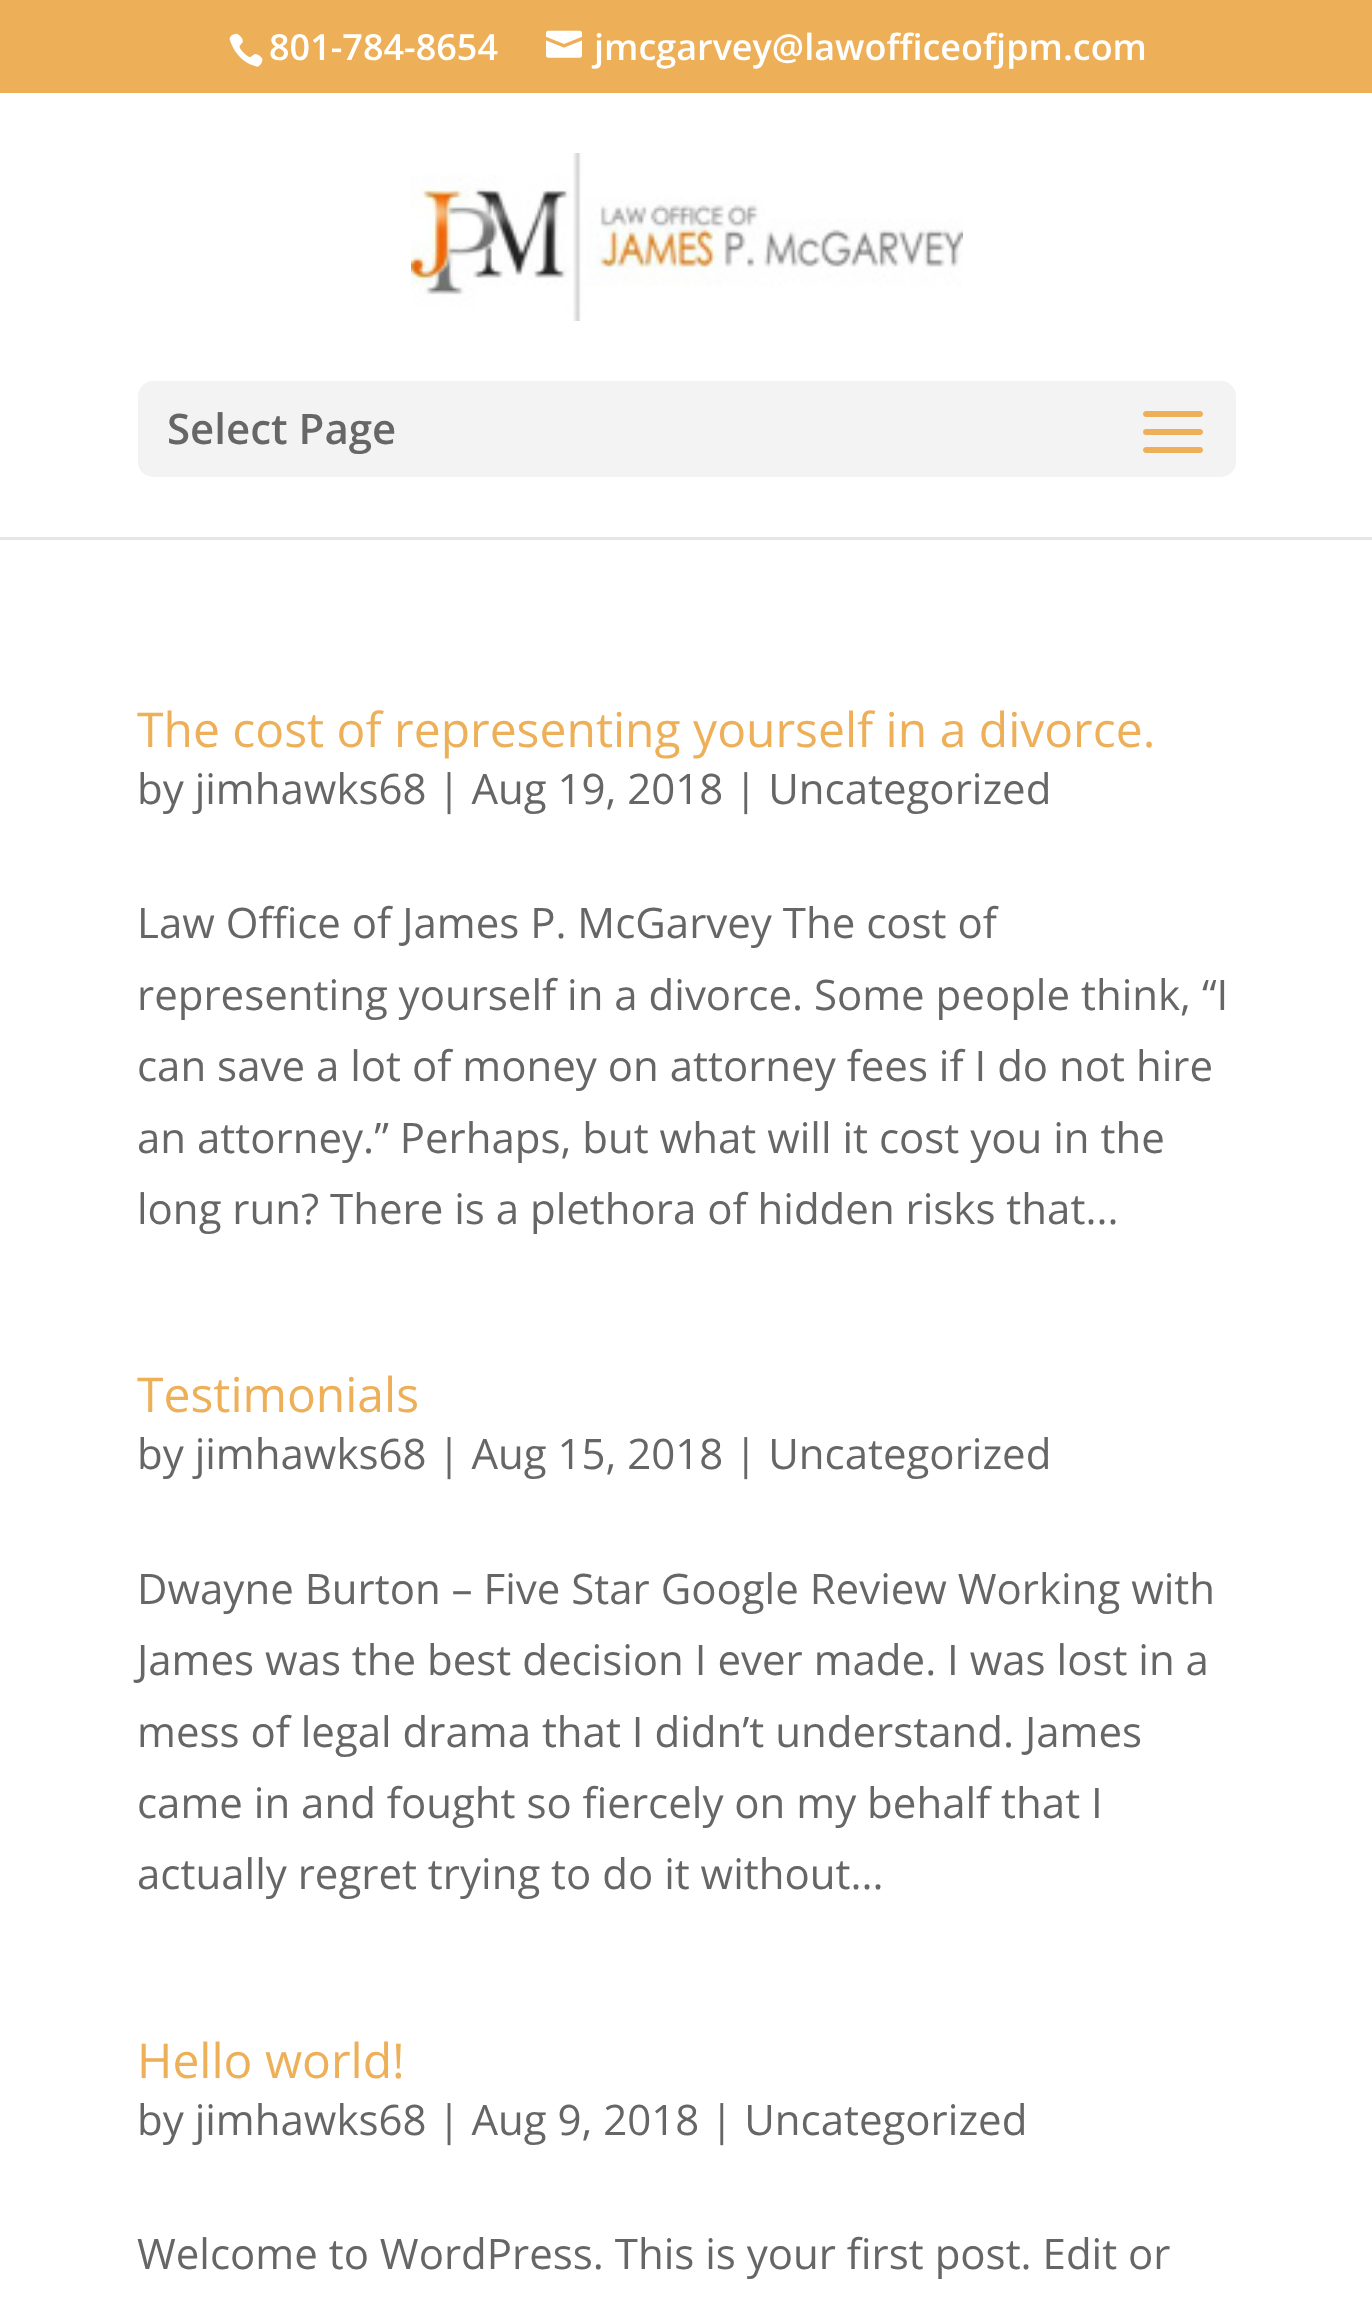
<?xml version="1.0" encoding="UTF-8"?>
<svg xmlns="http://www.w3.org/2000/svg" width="1372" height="2311">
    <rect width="100%" height="100%" fill="#FFFFFF"/>
    <rect x="0" y="0" width="1372" height="93" fill="#EDB059"/>
    <image x="229" y="33" width="34" height="34" href="img_01.png"/>
    <text x="269" y="60" font-family="Open Sans" font-size="36" font-weight="600" fill="#FFFFFF">801-784-8654</text>
    <image x="546" y="30" width="36" height="28" href="img_02.png"/>
    <text x="594" y="60" font-family="Open Sans" font-size="36" font-weight="600" fill="#FFFFFF">jmcgarvey@lawofficeofjpm.com</text>
    <rect x="0" y="537" width="1372" height="3" fill="#E6E6E6"/>
    <image x="411" y="153" width="552" height="168" href="img_03.png"/>
    <rect x="138" y="381" width="1098" height="96" rx="15" fill="#F3F3F3"/>
    <text x="167" y="444" font-family="Open Sans" font-size="42" font-weight="600" fill="#666666">Select Page</text>
    <image x="1143" y="411" width="60" height="42" href="img_04.png"/>
    <text x="137" y="747" font-family="Open Sans" font-size="48" fill="#EDB059">The cost of representing yourself in a divorce.</text>
    <text x="137" y="804" font-family="Open Sans" font-size="42" fill="#666666">by jimhawks68 | Aug 19, 2018 | Uncategorized</text>
    <text font-family="Open Sans" font-size="42" fill="#666666">
        <tspan x="137" y="938">Law Office of James P. McGarvey The cost of</tspan>
        <tspan x="137" y="1010">representing yourself in a divorce. Some people think, “I</tspan>
        <tspan x="137" y="1081">can save a lot of money on attorney fees if I do not hire</tspan>
        <tspan x="137" y="1153">an attorney.” Perhaps, but what will it cost you in the</tspan>
        <tspan x="137" y="1224">long run? There is a plethora of hidden risks that...</tspan>
    </text>
    <text x="137" y="1412" font-family="Open Sans" font-size="48" fill="#EDB059">Testimonials</text>
    <text x="137" y="1469" font-family="Open Sans" font-size="42" fill="#666666">by jimhawks68 | Aug 15, 2018 | Uncategorized</text>
    <text font-family="Open Sans" font-size="42" fill="#666666">
        <tspan x="137" y="1604">Dwayne Burton – Five Star Google Review Working with</tspan>
        <tspan x="137" y="1675">James was the best decision I ever made. I was lost in a</tspan>
        <tspan x="137" y="1747">mess of legal drama that I didn’t understand. James</tspan>
        <tspan x="137" y="1818">came in and fought so fiercely on my behalf that I</tspan>
        <tspan x="137" y="1889">actually regret trying to do it without...</tspan>
    </text>
    <text x="137" y="2078" font-family="Open Sans" font-size="48" fill="#EDB059">Hello world!</text>
    <text x="137" y="2135" font-family="Open Sans" font-size="42" fill="#666666">by jimhawks68 | Aug 9, 2018 | Uncategorized</text>
    <text x="137" y="2269" font-family="Open Sans" font-size="42" fill="#666666">Welcome to WordPress. This is your first post. Edit or</text>
</svg>
